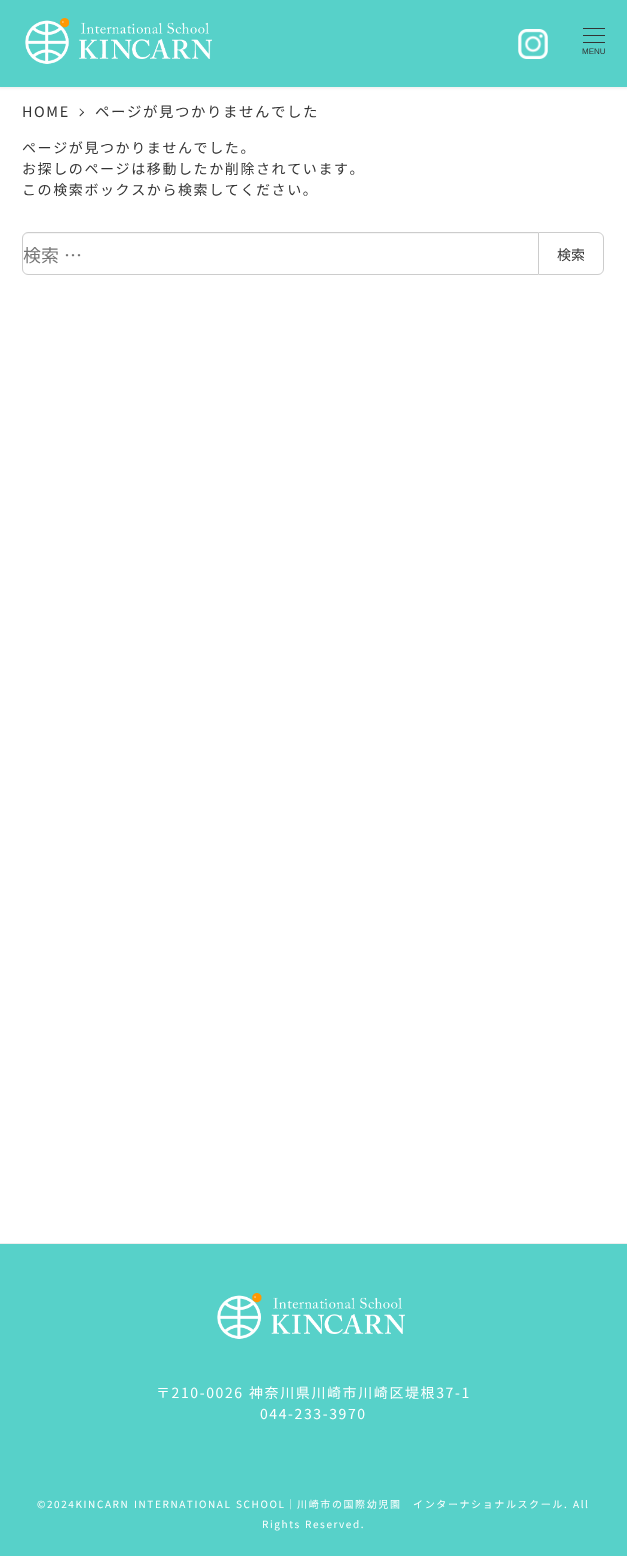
<?xml version="1.0" encoding="UTF-8"?>
<svg xmlns="http://www.w3.org/2000/svg" width="627" height="1556">
    <style>*{font-kerning:none!important;font-variant-ligatures:none!important}</style>
    <defs>
        <filter id="blur1" x="-50%" y="-200%" width="200%" height="500%"><feGaussianBlur stdDeviation="1"/></filter>
    </defs>
    <rect width="100%" height="100%" fill="#FFFFFF"/>
    <rect x="-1" y="0" width="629" height="89" fill="#000000" fill-opacity="0.05" filter="url(#blur1)"/>
    <rect x="0" y="0" width="627" height="87" fill="#57D1C9"/>
    <image x="25" y="18" width="187" height="46" href="img_01.png"/>
    <image x="518" y="29" width="30" height="30" href="img_02.png"/>
    <rect x="583" y="28" width="22" height="1" fill="#333333"/>
    <rect x="583" y="35" width="22" height="1" fill="#333333"/>
    <rect x="583" y="42" width="22" height="1" fill="#333333"/>
    <text x="582" y="54" font-family="Liberation Sans" font-size="8" fill="#333333">MENU</text>
    <text x="22" y="117" font-family="Noto Sans JP" font-size="14.4" letter-spacing="1.6" fill="#333333">HOME</text>
    <path d="M 80 108.5 L 84 112.5 L 83.5 113 L 79.5 109 Z" fill="#333333"/>
    <path d="M 83.5 111.5 L 84 112.5 L 80 116.5 L 79.5 115.5 Z" fill="#333333"/>
    <text x="95" y="117" font-family="Noto Sans JP" font-size="14.4" letter-spacing="1.6" fill="#333333">ページが見つかりませんでした</text>
    <text font-family="Noto Sans JP" font-size="14" letter-spacing="1.6" fill="#333333">
        <tspan x="22" y="153">ページが見つかりませんでした。</tspan>
        <tspan x="22" y="174">お探しのページは移動したか削除されています。</tspan>
        <tspan x="22" y="195">この検索ボックスから検索してください。</tspan>
    </text>
    <path d="M 538.5 232.5 H 598 C 601 232.5 603.5 235 603.5 238 V 269 C 603.5 272 601 274.5 598 274.5 H 538.5 Z" fill="none" stroke="#CCCCCC"/>
    <path d="M 28 232 H 539 V 275 H 28 C 24.5 275 22 272.5 22 269 V 238 C 22 234.5 24.5 232 28 232 Z" fill="#FFFFFF"/>
    <path d="M 28 234 H 538 V 233 H 28 C 25 233 23 235 23 238 V 239 C 23 236 25 234 28 234 Z" fill="#F6F6F6"/>
    <path d="M 28 232.5 H 538.5 V 274.5 H 28 C 25 274.5 22.5 272 22.5 269 V 238 C 22.5 235 25 232.5 28 232.5 Z" fill="none" stroke="#CCCCCC"/>
    <text x="23" y="262" font-family="Noto Sans JP" font-size="18" fill="#757575">検索</text>
    <text x="64" y="262" font-family="Noto Sans JP" font-size="18" fill="#757575">…</text>
    <text x="557" y="260" font-family="Noto Sans JP" font-size="14" fill="#333333">検索</text>
    <rect x="0" y="1244" width="627" height="312" fill="#57D1C9"/>
    <rect x="0" y="1243" width="627" height="1" fill="#EEEEEE"/>
    <image x="217" y="1293" width="188" height="46" href="img_03.png"/>
    <text x="156" y="1398" font-family="Noto Sans JP" font-size="14" letter-spacing="1.6" fill="#FFFFFF">〒210-0026</text>
    <text x="249" y="1398" font-family="Noto Sans JP" font-size="14" letter-spacing="1.6" fill="#FFFFFF">神奈川県川崎市川崎区堤根37-1</text>
    <text x="260" y="1419" font-family="Noto Sans JP" font-size="14" letter-spacing="1.6" fill="#FFFFFF">044-233-3970</text>
    <text x="37" y="1508" font-family="Noto Sans JP" font-size="10" letter-spacing="1.6" fill="#FFFFFF">©2024KINCARN</text>
    <text x="134" y="1508" font-family="Noto Sans JP" font-size="10" letter-spacing="1.6" fill="#FFFFFF">INTERNATIONAL</text>
    <text x="236" y="1508" font-family="Noto Sans JP" font-size="10" letter-spacing="1.6" fill="#FFFFFF">SCHOOL｜川崎市の国際幼児園　インターナショナルスクール.</text>
    <text x="573" y="1508" font-family="Noto Sans JP" font-size="10" letter-spacing="1.6" fill="#FFFFFF">All</text>
    <text x="262" y="1528" font-family="Noto Sans JP" font-size="10" letter-spacing="1.6" fill="#FFFFFF">Rights</text>
    <text x="305" y="1528" font-family="Noto Sans JP" font-size="10" letter-spacing="1.6" fill="#FFFFFF">Reserved.</text>
</svg>
